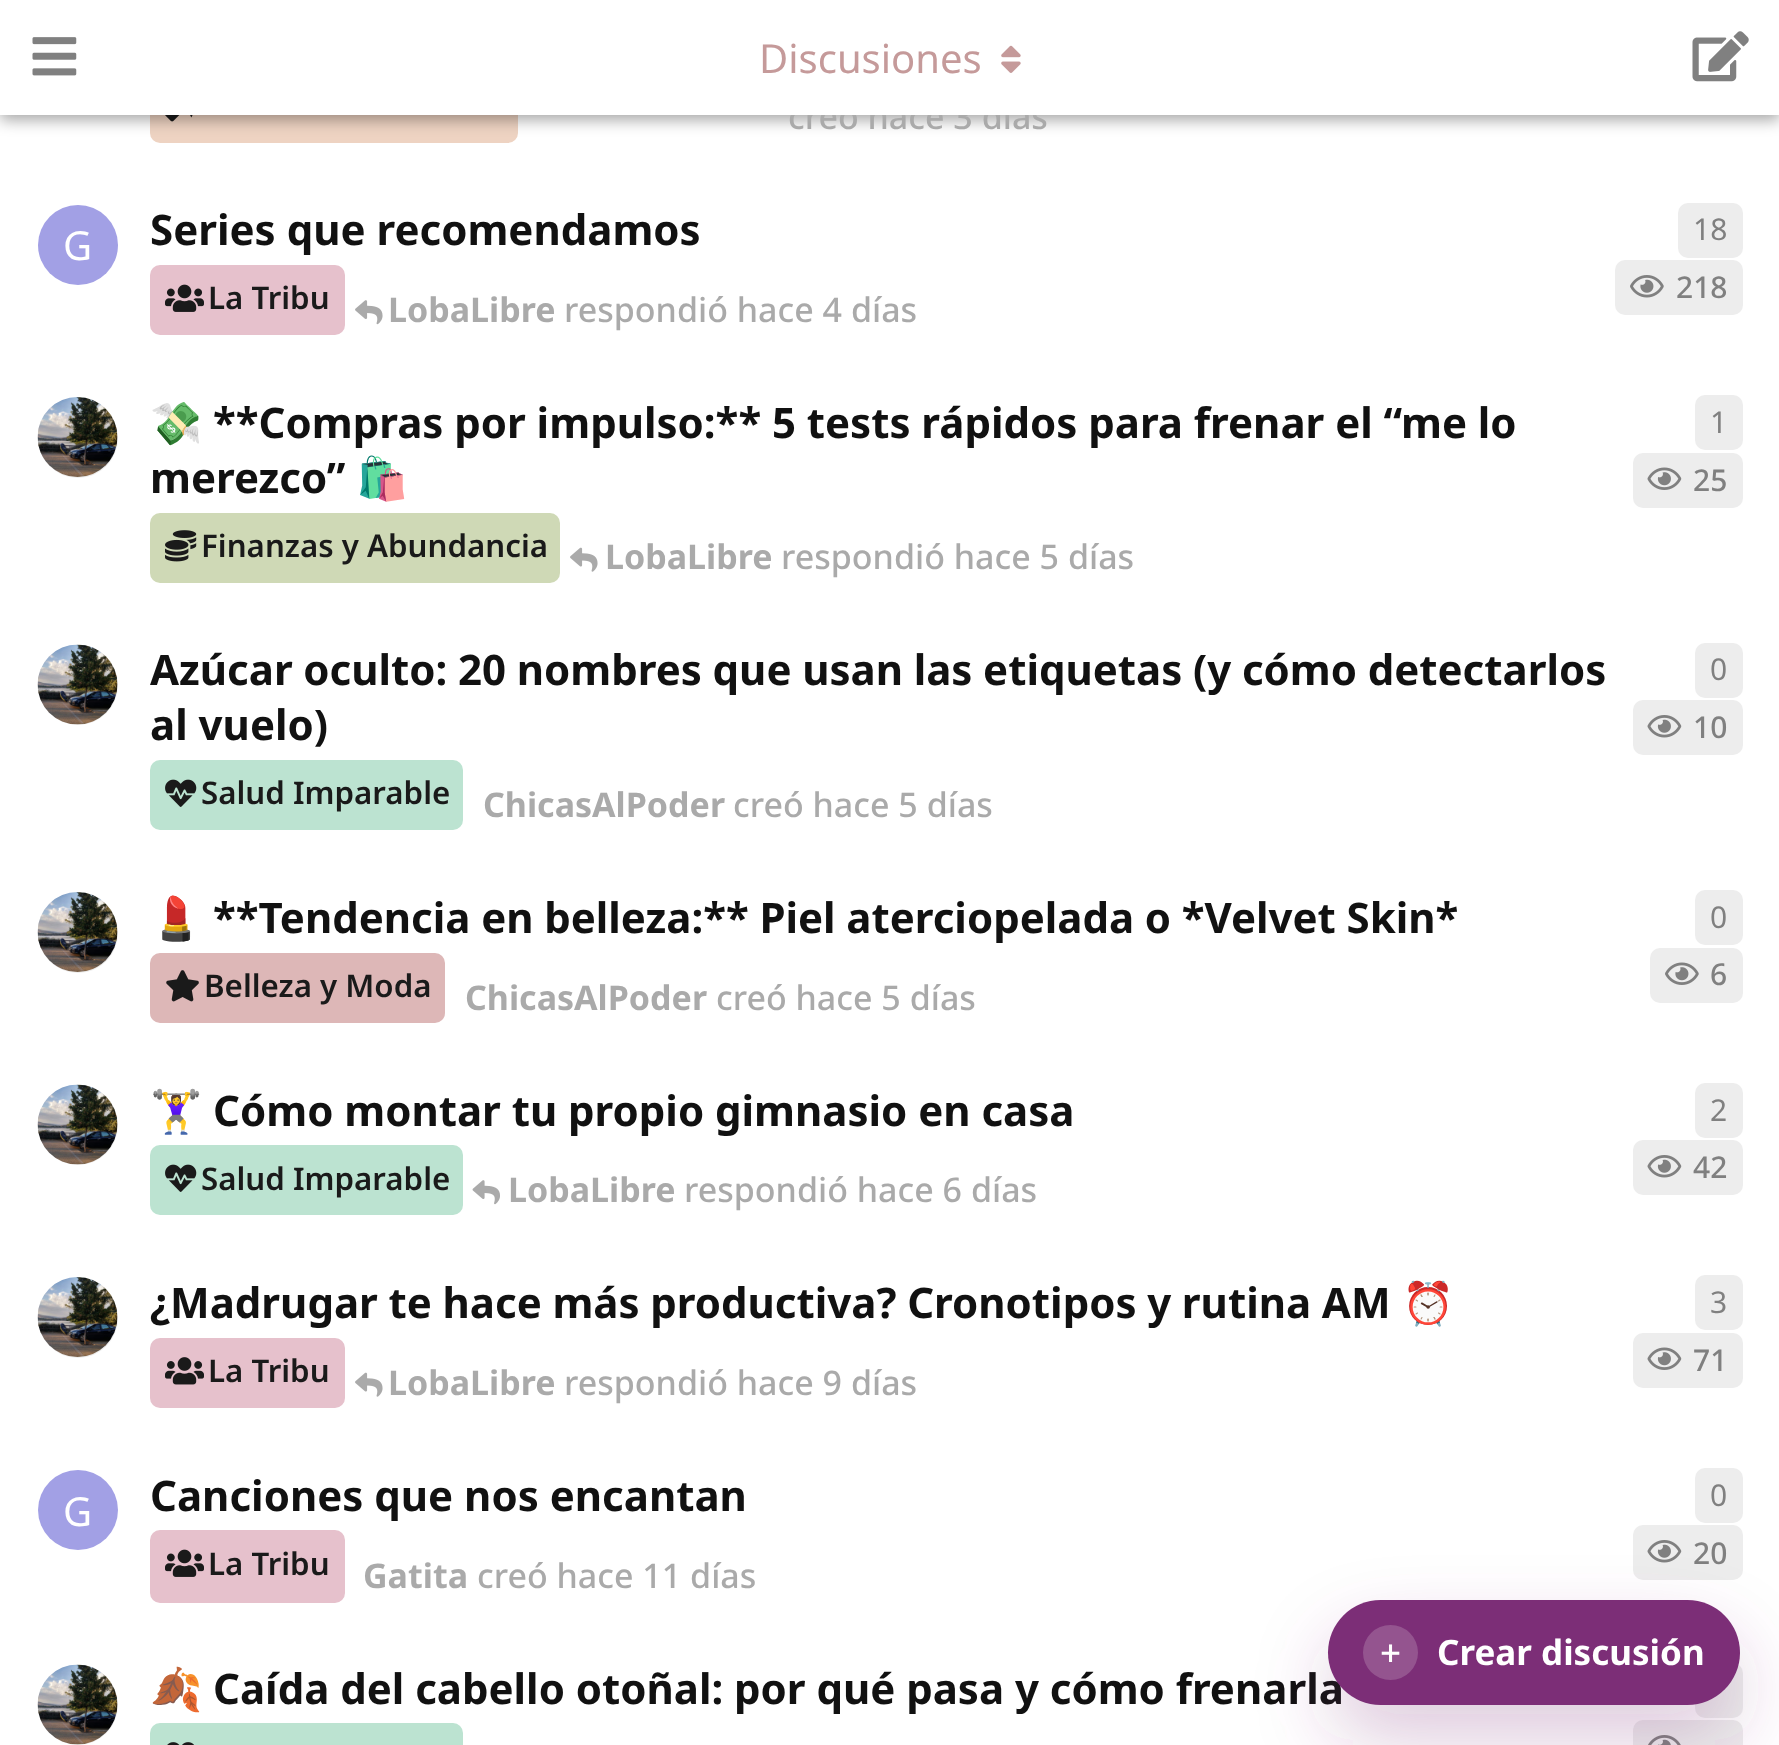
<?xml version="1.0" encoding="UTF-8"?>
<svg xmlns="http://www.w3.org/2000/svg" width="1779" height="1745">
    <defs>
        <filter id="blur1" x="-50%" y="-200%" width="200%" height="500%"><feGaussianBlur stdDeviation="7.5"/></filter>
        <filter id="blur2" x="-50%" y="-200%" width="200%" height="500%"><feGaussianBlur stdDeviation="37.5"/></filter>
    </defs>
    <rect width="100%" height="100%" fill="#FFFFFF"/>
    <rect x="150" y="73" width="368" height="70" rx="10" fill="#EED3C2"/>
    <image x="165" y="115" width="28" height="7" href="img_04.png"/>
    <rect x="0" y="5" width="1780" height="115" fill="#000000" fill-opacity="0.35" filter="url(#blur1)"/>
    <text x="788" y="129" font-family="Noto Sans" font-size="34" font-weight="500" fill="#AAAAAA">creó hace 3 días</text>
    <rect x="0" y="0" width="1779" height="115" fill="#FFFFFF"/>
    <image x="32" y="37" width="45" height="39" href="img_01.png"/>
    <text x="759" y="73" font-family="Noto Sans" font-size="40" fill="#C59A9A">Discusiones</text>
    <image x="1001" y="45" width="20" height="28" href="img_02.png"/>
    <image x="1692" y="31" width="57" height="51" href="img_03.png"/>
    <text x="150" y="245" font-family="Noto Sans" font-size="42" font-weight="700" fill="#111111">Series que recomendamos</text>
    <rect x="150" y="265" width="195" height="70" rx="10" fill="#E6C1CC"/>
    <image x="165" y="284" width="39" height="28" href="img_05.png"/>
    <text x="208" y="309" font-family="Noto Sans" font-size="31.25" font-weight="600" fill="#1A1A1A">La Tribu</text>
    <image x="355" y="300" width="28" height="25" href="img_06.png"/>
    <text x="388" y="322" font-family="Noto Sans" font-size="34" font-weight="700" fill="#AAAAAA">LobaLibre</text>
    <text x="564" y="322" font-family="Noto Sans" font-size="34" font-weight="500" fill="#AAAAAA">respondió hace 4 días</text>
    <rect x="1615" y="260" width="128" height="55" rx="10" fill="#EDEDED"/>
    <image x="1630" y="275" width="34" height="23" href="img_07.png"/>
    <text x="1676" y="298" font-family="Noto Sans" font-size="30" font-weight="500" fill="#808080">218</text>
    <circle cx="78" cy="245" r="40" fill="#A2A0E5"/>
    <text x="63" y="260" font-family="Noto Sans" font-size="40" fill="#FFFFFF">G</text>
    <rect x="1678" y="203" width="65" height="55" rx="10" fill="#EDEDED"/>
    <text x="1693" y="240" font-family="Noto Sans" font-size="30" fill="#808080">18</text>
    <circle cx="78" cy="438" r="40" fill="#EDEDED"/>
    <image x="37" y="397" width="81" height="80" href="img_08.png"/>
    <text x="150" y="438" font-family="Noto Color Emoji" font-size="42" font-weight="700" fill="#111111">💸</text>
    <text x="213" y="438" word-spacing="-0.1" font-family="Noto Sans" font-size="42" font-weight="700" fill="#111111">**Compras por impulso:** 5 tests rápidos para frenar el “me lo</text>
    <text x="150" y="493" font-family="Noto Sans" font-size="42" font-weight="700" fill="#111111">merezco”</text>
    <text x="356" y="493" font-family="Noto Color Emoji" font-size="42" font-weight="700" fill="#111111">🛍️</text>
    <rect x="1633" y="453" width="110" height="55" rx="10" fill="#EDEDED"/>
    <image x="1647" y="467" width="35" height="23" href="img_09.png"/>
    <text x="1693" y="491" font-family="Noto Sans" font-size="30" font-weight="500" fill="#808080">25</text>
    <rect x="150" y="513" width="410" height="70" rx="10" fill="#CFD9B6"/>
    <image x="165" y="530" width="32" height="32" href="img_10.png"/>
    <text x="201" y="557" font-family="Noto Sans" font-size="31.25" font-weight="600" fill="#1A1A1A">Finanzas y Abundancia</text>
    <image x="570" y="547" width="28" height="25" href="img_11.png"/>
    <text x="605" y="569" font-family="Noto Sans" font-size="34" font-weight="700" fill="#AAAAAA">LobaLibre</text>
    <text x="781" y="569" font-family="Noto Sans" font-size="34" font-weight="500" fill="#AAAAAA">respondió hace 5 días</text>
    <rect x="1695" y="395" width="48" height="55" rx="10" fill="#EDEDED"/>
    <text x="1710" y="433" font-family="Noto Sans" font-size="30" fill="#808080">1</text>
    <circle cx="78" cy="685" r="40" fill="#EDEDED"/>
    <image x="37" y="644" width="81" height="81" href="img_12.png"/>
    <text font-family="Noto Sans" font-size="42" font-weight="700" fill="#111111">
        <tspan x="150" y="685" word-spacing="-0.25">Azúcar oculto: 20 nombres que usan las etiquetas (y cómo detectarlos</tspan>
        <tspan x="150" y="740">al vuelo)</tspan>
    </text>
    <rect x="1633" y="700" width="110" height="55" rx="10" fill="#EDEDED"/>
    <image x="1647" y="715" width="35" height="23" href="img_13.png"/>
    <text x="1693" y="738" font-family="Noto Sans" font-size="30" font-weight="500" fill="#808080">10</text>
    <rect x="150" y="760" width="313" height="70" rx="10" fill="#BCE3D1"/>
    <image x="165" y="779" width="32" height="28" href="img_14.png"/>
    <text x="201" y="804" font-family="Noto Sans" font-size="31.25" font-weight="600" fill="#1A1A1A">Salud Imparable</text>
    <text x="483" y="817" font-family="Noto Sans" font-size="34" font-weight="700" fill="#AAAAAA">ChicasAlPoder</text>
    <text x="733" y="817" font-family="Noto Sans" font-size="34" font-weight="500" fill="#AAAAAA">creó hace 5 días</text>
    <rect x="1695" y="643" width="48" height="55" rx="10" fill="#EDEDED"/>
    <text x="1710" y="680" font-family="Noto Sans" font-size="30" fill="#808080">0</text>
    <circle cx="78" cy="933" r="40" fill="#EDEDED"/>
    <image x="37" y="892" width="81" height="80" href="img_15.png"/>
    <text x="150" y="933" font-family="Noto Color Emoji" font-size="42" font-weight="700" fill="#111111">💄</text>
    <text x="213" y="933" word-spacing="-0.25" font-family="Noto Sans" font-size="42" font-weight="700" fill="#111111">**Tendencia en belleza:** Piel aterciopelada o *Velvet Skin*</text>
    <rect x="150" y="953" width="295" height="70" rx="10" fill="#DDB7B7"/>
    <image x="166" y="970" width="33" height="32" href="img_16.png"/>
    <text x="204" y="997" font-family="Noto Sans" font-size="31.25" font-weight="600" fill="#1A1A1A">Belleza y Moda</text>
    <text x="465" y="1010" font-family="Noto Sans" font-size="34" font-weight="700" fill="#AAAAAA">ChicasAlPoder</text>
    <text x="716" y="1010" font-family="Noto Sans" font-size="34" font-weight="500" fill="#AAAAAA">creó hace 5 días</text>
    <rect x="1650" y="948" width="93" height="55" rx="10" fill="#EDEDED"/>
    <image x="1665" y="962" width="34" height="23" href="img_17.png"/>
    <text x="1710" y="985" font-family="Noto Sans" font-size="30" font-weight="500" fill="#808080">6</text>
    <rect x="1695" y="890" width="48" height="55" rx="10" fill="#EDEDED"/>
    <text x="1710" y="928" font-family="Noto Sans" font-size="30" fill="#808080">0</text>
    <circle cx="78" cy="1125" r="40" fill="#EDEDED"/>
    <image x="37" y="1084" width="81" height="81" href="img_18.png"/>
    <text x="150" y="1126" font-family="Noto Color Emoji" font-size="42" font-weight="700" fill="#111111">🏋️‍♀️</text>
    <text x="213" y="1126" word-spacing="-0.1" font-family="Noto Sans" font-size="42" font-weight="700" fill="#111111">Cómo montar tu propio gimnasio en casa</text>
    <rect x="150" y="1145" width="313" height="70" rx="10" fill="#BCE3D1"/>
    <image x="165" y="1164" width="32" height="28" href="img_14.png"/>
    <text x="201" y="1190" font-family="Noto Sans" font-size="31.25" font-weight="600" fill="#1A1A1A">Salud Imparable</text>
    <image x="472" y="1180" width="28" height="25" href="img_19.png"/>
    <text x="508" y="1202" font-family="Noto Sans" font-size="34" font-weight="700" fill="#AAAAAA">LobaLibre</text>
    <text x="684" y="1202" font-family="Noto Sans" font-size="34" font-weight="500" fill="#AAAAAA">respondió hace 6 días</text>
    <rect x="1633" y="1140" width="110" height="55" rx="10" fill="#EDEDED"/>
    <image x="1647" y="1155" width="35" height="23" href="img_13.png"/>
    <text x="1693" y="1178" font-family="Noto Sans" font-size="30" font-weight="500" fill="#808080">42</text>
    <rect x="1695" y="1083" width="48" height="55" rx="10" fill="#EDEDED"/>
    <text x="1710" y="1121" font-family="Noto Sans" font-size="30" fill="#808080">2</text>
    <circle cx="78" cy="1318" r="40" fill="#EDEDED"/>
    <image x="37" y="1277" width="81" height="80" href="img_20.png"/>
    <text x="150" y="1318" word-spacing="-0.25" font-family="Noto Sans" font-size="42" font-weight="700" fill="#111111">¿Madrugar te hace más productiva? Cronotipos y rutina AM</text>
    <text x="1402" y="1318" font-family="Noto Color Emoji" font-size="42" font-weight="700" fill="#111111">⏰</text>
    <rect x="150" y="1338" width="195" height="70" rx="10" fill="#E6C1CC"/>
    <image x="165" y="1357" width="39" height="28" href="img_21.png"/>
    <text x="208" y="1382" font-family="Noto Sans" font-size="31.25" font-weight="600" fill="#1A1A1A">La Tribu</text>
    <image x="355" y="1372" width="28" height="25" href="img_11.png"/>
    <text x="388" y="1395" font-family="Noto Sans" font-size="34" font-weight="700" fill="#AAAAAA">LobaLibre</text>
    <text x="564" y="1395" font-family="Noto Sans" font-size="34" font-weight="500" fill="#AAAAAA">respondió hace 9 días</text>
    <rect x="1633" y="1333" width="110" height="55" rx="10" fill="#EDEDED"/>
    <image x="1647" y="1347" width="35" height="23" href="img_09.png"/>
    <text x="1693" y="1371" font-family="Noto Sans" font-size="30" font-weight="500" fill="#808080">71</text>
    <rect x="1695" y="1275" width="48" height="55" rx="10" fill="#EDEDED"/>
    <text x="1710" y="1313" font-family="Noto Sans" font-size="30" fill="#808080">3</text>
    <text x="150" y="1511" font-family="Noto Sans" font-size="42" font-weight="700" fill="#111111">Canciones que nos encantan</text>
    <rect x="150" y="1530" width="195" height="73" rx="10" fill="#E6C1CC"/>
    <image x="165" y="1549" width="39" height="28" href="img_05.png"/>
    <text x="208" y="1575" font-family="Noto Sans" font-size="31.25" font-weight="600" fill="#1A1A1A">La Tribu</text>
    <text x="363" y="1588" font-family="Noto Sans" font-size="34" font-weight="700" fill="#AAAAAA">Gatita</text>
    <text x="477" y="1588" font-family="Noto Sans" font-size="34" font-weight="500" fill="#AAAAAA">creó hace 11 días</text>
    <rect x="1633" y="1525" width="110" height="55" rx="10" fill="#EDEDED"/>
    <image x="1647" y="1540" width="35" height="23" href="img_13.png"/>
    <text x="1693" y="1564" font-family="Noto Sans" font-size="30" font-weight="500" fill="#808080">20</text>
    <circle cx="78" cy="1510" r="40" fill="#A2A0E5"/>
    <text x="63" y="1526" font-family="Noto Sans" font-size="40" fill="#FFFFFF">G</text>
    <rect x="1695" y="1468" width="48" height="55" rx="10" fill="#EDEDED"/>
    <text x="1710" y="1506" font-family="Noto Sans" font-size="30" fill="#808080">0</text>
    <circle cx="78" cy="1705" r="40" fill="#EDEDED"/>
    <image x="37" y="1664" width="81" height="81" href="img_22.png"/>
    <text x="150" y="1704" font-family="Noto Color Emoji" font-size="42" font-weight="700" fill="#111111">🍂</text>
    <text x="213" y="1704" word-spacing="-0.1" font-family="Noto Sans" font-size="42" font-weight="700" fill="#111111">Caída del cabello otoñal: por qué pasa y cómo frenarla</text>
    <rect x="150" y="1723" width="313" height="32" rx="10" fill="#BCE3D1"/>
    <image x="167" y="1742" width="27" height="3" href="img_23.png"/>
    <rect x="1633" y="1720" width="110" height="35" rx="10" fill="#EDEDED"/>
    <image x="1648" y="1735" width="33" height="10" href="img_24.png"/>
    <rect x="1695" y="1663" width="48" height="55" rx="10" fill="#EDEDED"/>
    <rect x="1328" y="1635" width="412" height="105" rx="52.5" fill="#7C2E77" fill-opacity="0.25" filter="url(#blur2)"/>
    <rect x="1328" y="1600" width="412" height="105" rx="52.5" fill="#7C2E77"/>
    <circle cx="1390.5" cy="1652.5" r="27.5" fill="#94548F"/>
    <text x="1374" y="1663" font-family="WenQuanYi Zen Hei" font-size="32" font-weight="700" fill="#FFFFFF">＋</text>
    <text x="1437" y="1665" font-family="Noto Sans" font-size="35" font-weight="700" fill="#FFFFFF">Crear discusión</text>
</svg>
